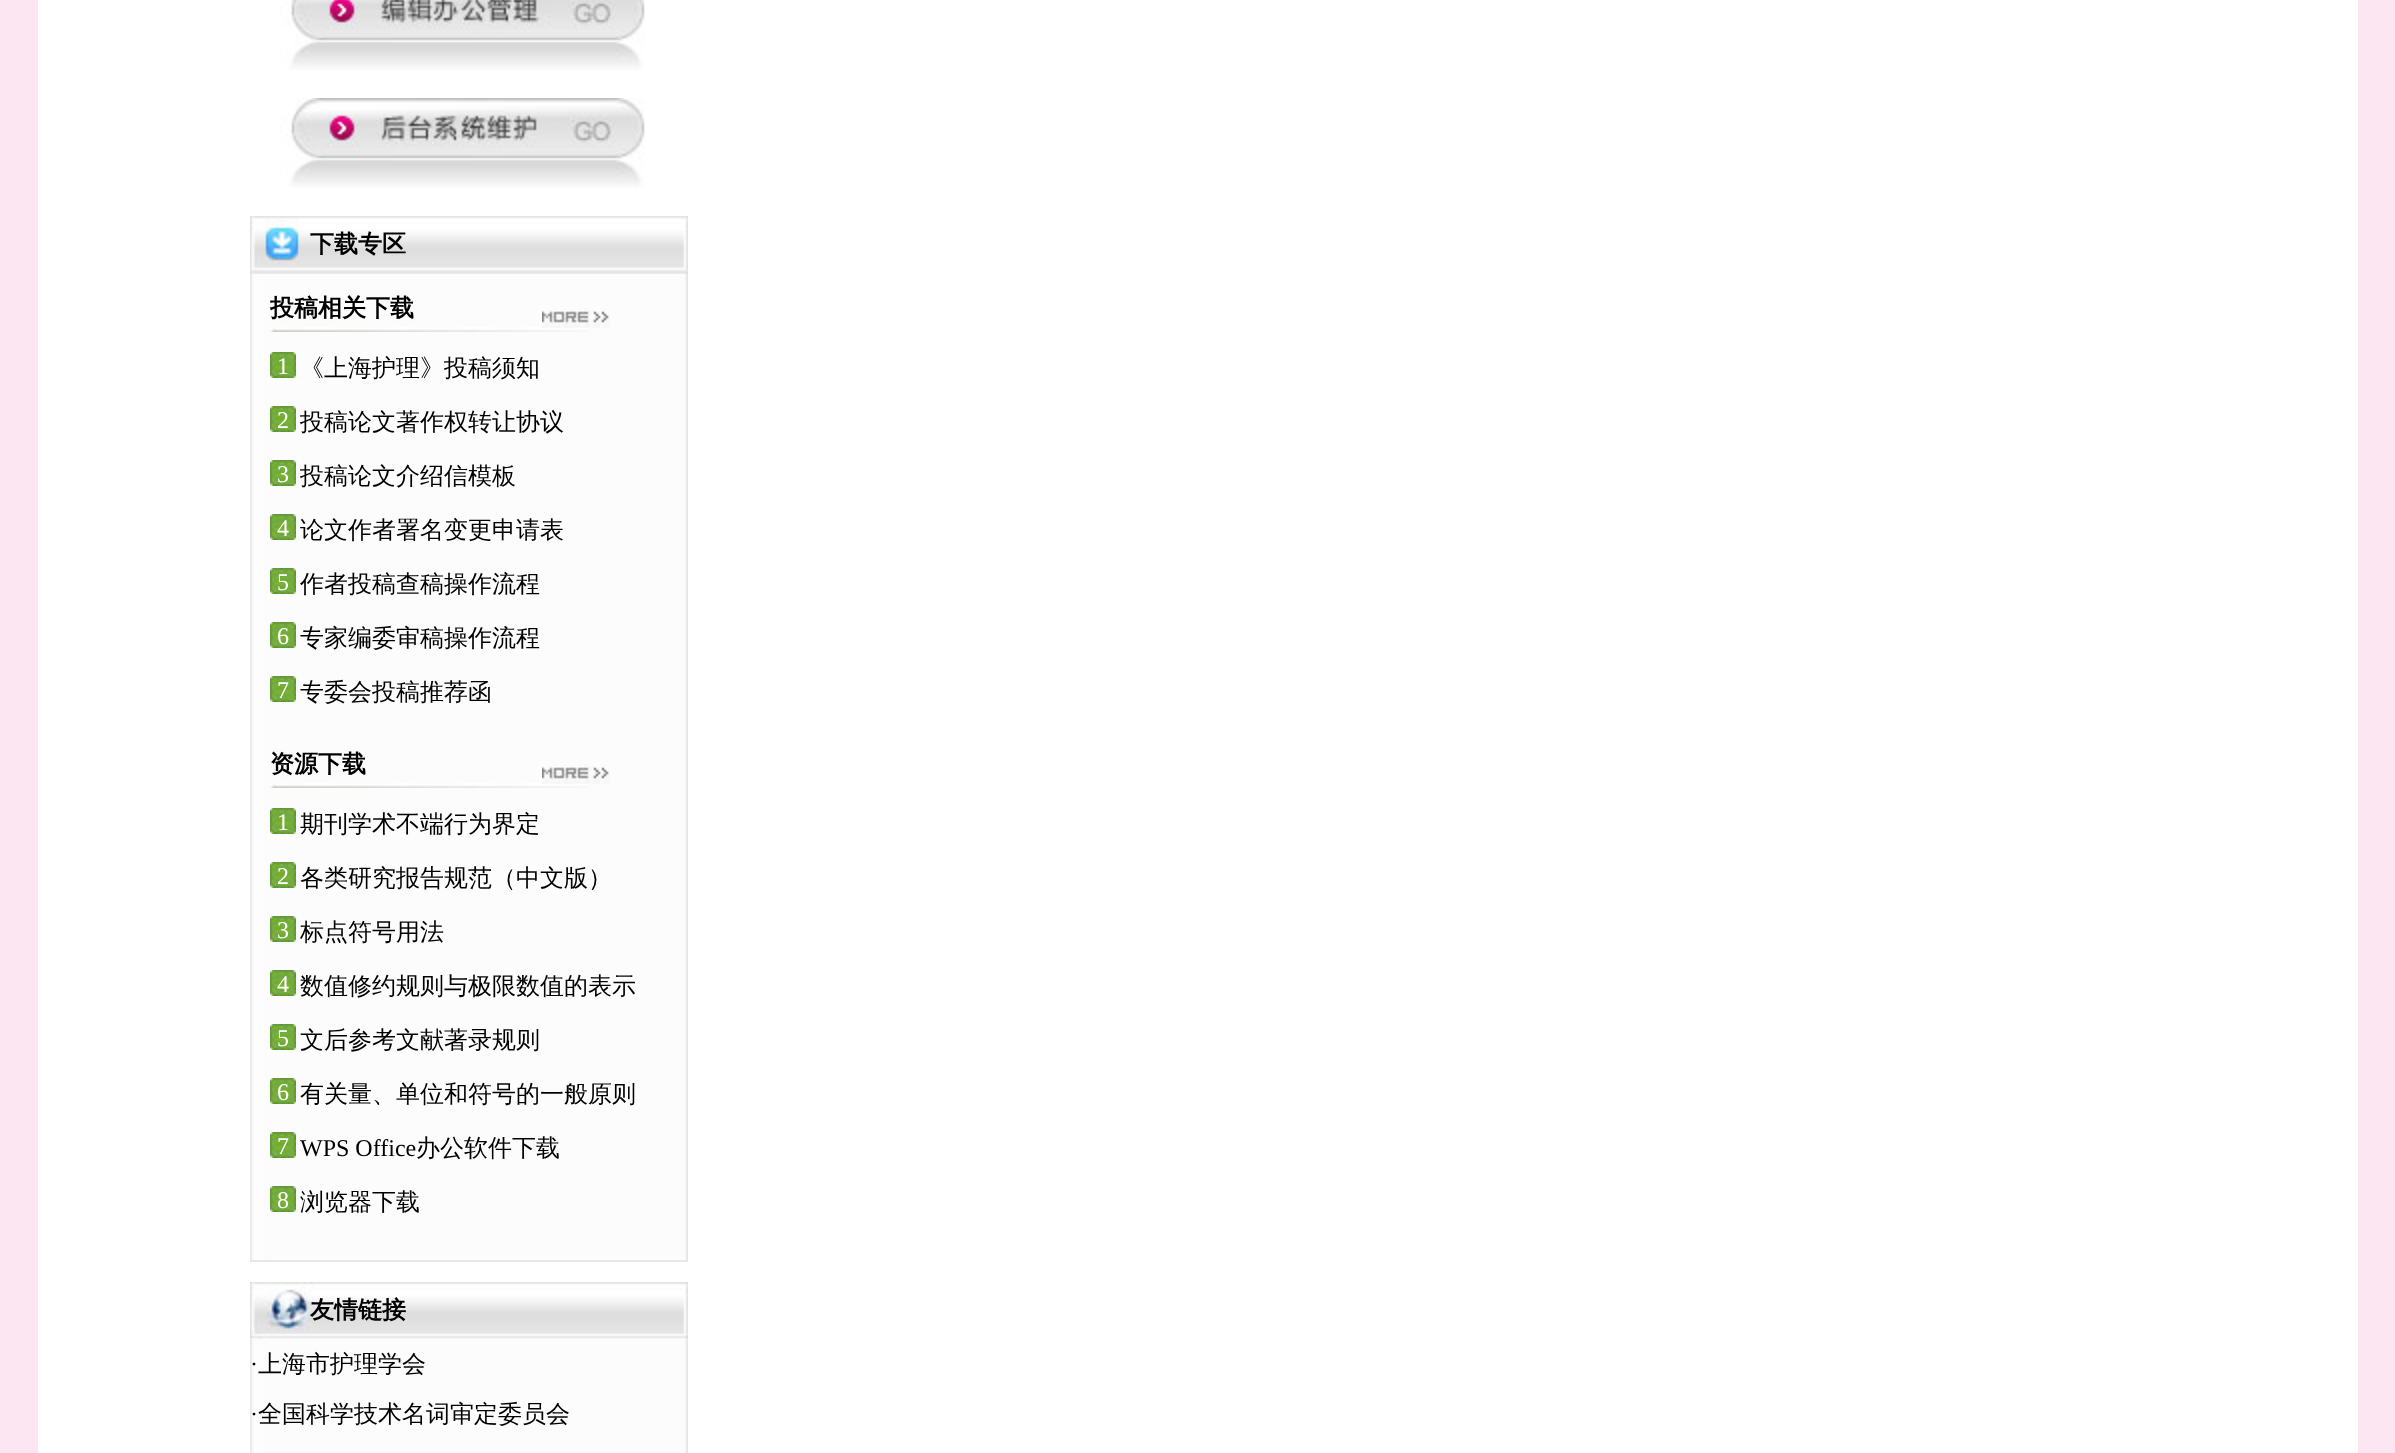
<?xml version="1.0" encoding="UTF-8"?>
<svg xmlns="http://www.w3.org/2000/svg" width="2395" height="1453">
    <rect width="100%" height="100%" fill="#FCE6F2"/>
    <rect x="38" y="0" width="2320" height="1453" fill="#FFFFFF"/>
    <image x="280" y="0" width="365" height="70" href="img_01.png"/>
    <image x="280" y="98" width="365" height="90" href="img_02.png"/>
    <image x="250" y="274" width="438" height="986" href="img_03.png"/>
    <rect x="250" y="1260" width="438" height="2" fill="#E7E7E7"/>
    <image x="250" y="216" width="438" height="58" href="img_04.png"/>
    <text x="310" y="252" font-family="WenQuanYi Zen Hei" font-size="24" font-weight="700" fill="#000000">下载专区</text>
    <image x="270" y="327" width="320" height="5" href="img_05.png"/>
    <text x="270" y="316" font-family="WenQuanYi Zen Hei" font-size="24" font-weight="700" fill="#000000">投稿相关下载</text>
    <image x="542" y="308" width="68" height="20" href="img_06.png"/>
    <image x="270" y="352" width="26" height="26" href="img_07.png"/>
    <text x="277" y="374" font-family="Liberation Serif" font-size="24" fill="#FFFFFF">1</text>
    <text x="300" y="376" font-family="WenQuanYi Zen Hei" font-size="24" font-weight="500" fill="#000000">《上海护理》投稿须知</text>
    <image x="270" y="406" width="26" height="26" href="img_07.png"/>
    <text x="277" y="428" font-family="Liberation Serif" font-size="24" fill="#FFFFFF">2</text>
    <text x="300" y="430" font-family="WenQuanYi Zen Hei" font-size="24" font-weight="500" fill="#000000">投稿论文著作权转让协议</text>
    <image x="270" y="460" width="26" height="26" href="img_07.png"/>
    <text x="277" y="482" font-family="Liberation Serif" font-size="24" fill="#FFFFFF">3</text>
    <text x="300" y="484" font-family="WenQuanYi Zen Hei" font-size="24" font-weight="500" fill="#000000">投稿论文介绍信模板</text>
    <image x="270" y="514" width="26" height="26" href="img_07.png"/>
    <text x="277" y="536" font-family="Liberation Serif" font-size="24" fill="#FFFFFF">4</text>
    <text x="300" y="538" font-family="WenQuanYi Zen Hei" font-size="24" font-weight="500" fill="#000000">论文作者署名变更申请表</text>
    <image x="270" y="568" width="26" height="26" href="img_07.png"/>
    <text x="277" y="590" font-family="Liberation Serif" font-size="24" fill="#FFFFFF">5</text>
    <text x="300" y="592" font-family="WenQuanYi Zen Hei" font-size="24" font-weight="500" fill="#000000">作者投稿查稿操作流程</text>
    <image x="270" y="622" width="26" height="26" href="img_07.png"/>
    <text x="277" y="644" font-family="Liberation Serif" font-size="24" fill="#FFFFFF">6</text>
    <text x="300" y="646" font-family="WenQuanYi Zen Hei" font-size="24" font-weight="500" fill="#000000">专家编委审稿操作流程</text>
    <image x="270" y="676" width="26" height="26" href="img_07.png"/>
    <text x="277" y="698" font-family="Liberation Serif" font-size="24" fill="#FFFFFF">7</text>
    <text x="300" y="700" font-family="WenQuanYi Zen Hei" font-size="24" font-weight="500" fill="#000000">专委会投稿推荐函</text>
    <image x="270" y="783" width="320" height="5" href="img_05.png"/>
    <text x="270" y="772" font-family="WenQuanYi Zen Hei" font-size="24" font-weight="700" fill="#000000">资源下载</text>
    <image x="542" y="764" width="68" height="20" href="img_06.png"/>
    <image x="270" y="808" width="26" height="26" href="img_07.png"/>
    <text x="277" y="830" font-family="Liberation Serif" font-size="24" fill="#FFFFFF">1</text>
    <text x="300" y="832" font-family="WenQuanYi Zen Hei" font-size="24" font-weight="500" fill="#000000">期刊学术不端行为界定</text>
    <image x="270" y="862" width="26" height="26" href="img_07.png"/>
    <text x="277" y="884" font-family="Liberation Serif" font-size="24" fill="#FFFFFF">2</text>
    <text x="300" y="886" font-family="WenQuanYi Zen Hei" font-size="24" font-weight="500" fill="#000000">各类研究报告规范（中文版）</text>
    <image x="270" y="916" width="26" height="26" href="img_07.png"/>
    <text x="277" y="938" font-family="Liberation Serif" font-size="24" fill="#FFFFFF">3</text>
    <text x="300" y="940" font-family="WenQuanYi Zen Hei" font-size="24" font-weight="500" fill="#000000">标点符号用法</text>
    <image x="270" y="970" width="26" height="26" href="img_07.png"/>
    <text x="277" y="992" font-family="Liberation Serif" font-size="24" fill="#FFFFFF">4</text>
    <text x="300" y="994" font-family="WenQuanYi Zen Hei" font-size="24" font-weight="500" fill="#000000">数值修约规则与极限数值的表示</text>
    <image x="270" y="1024" width="26" height="26" href="img_07.png"/>
    <text x="277" y="1046" font-family="Liberation Serif" font-size="24" fill="#FFFFFF">5</text>
    <text x="300" y="1048" font-family="WenQuanYi Zen Hei" font-size="24" font-weight="500" fill="#000000">文后参考文献著录规则</text>
    <image x="270" y="1078" width="26" height="26" href="img_07.png"/>
    <text x="277" y="1100" font-family="Liberation Serif" font-size="24" fill="#FFFFFF">6</text>
    <text x="300" y="1102" font-family="WenQuanYi Zen Hei" font-size="24" font-weight="500" fill="#000000">有关量、单位和符号的一般原则</text>
    <image x="270" y="1132" width="26" height="26" href="img_07.png"/>
    <text x="277" y="1154" font-family="Liberation Serif" font-size="24" fill="#FFFFFF">7</text>
    <text x="300" y="1156" font-family="Liberation Serif" font-size="24" fill="#000000">WPS Office</text>
    <text x="416" y="1156" font-family="WenQuanYi Zen Hei" font-size="24" font-weight="500" fill="#000000">办公软件下载</text>
    <image x="270" y="1186" width="26" height="26" href="img_07.png"/>
    <text x="277" y="1208" font-family="Liberation Serif" font-size="24" fill="#FFFFFF">8</text>
    <text x="300" y="1210" font-family="WenQuanYi Zen Hei" font-size="24" font-weight="500" fill="#000000">浏览器下载</text>
    <image x="250" y="1340" width="438" height="113" href="img_08.png"/>
    <image x="250" y="1282" width="438" height="58" href="img_09.png"/>
    <text x="310" y="1318" font-family="WenQuanYi Zen Hei" font-size="24" font-weight="700" fill="#000000">友情链接</text>
    <text x="250" y="1372" font-family="Liberation Serif" font-size="24" fill="#000000">·</text>
    <text x="258" y="1372" font-family="WenQuanYi Zen Hei" font-size="24" font-weight="500" fill="#000000">上海市护理学会</text>
    <text x="250" y="1422" font-family="Liberation Serif" font-size="24" fill="#000000">·</text>
    <text x="258" y="1422" font-family="WenQuanYi Zen Hei" font-size="24" font-weight="500" fill="#000000">全国科学技术名词审定委员会</text>
</svg>
